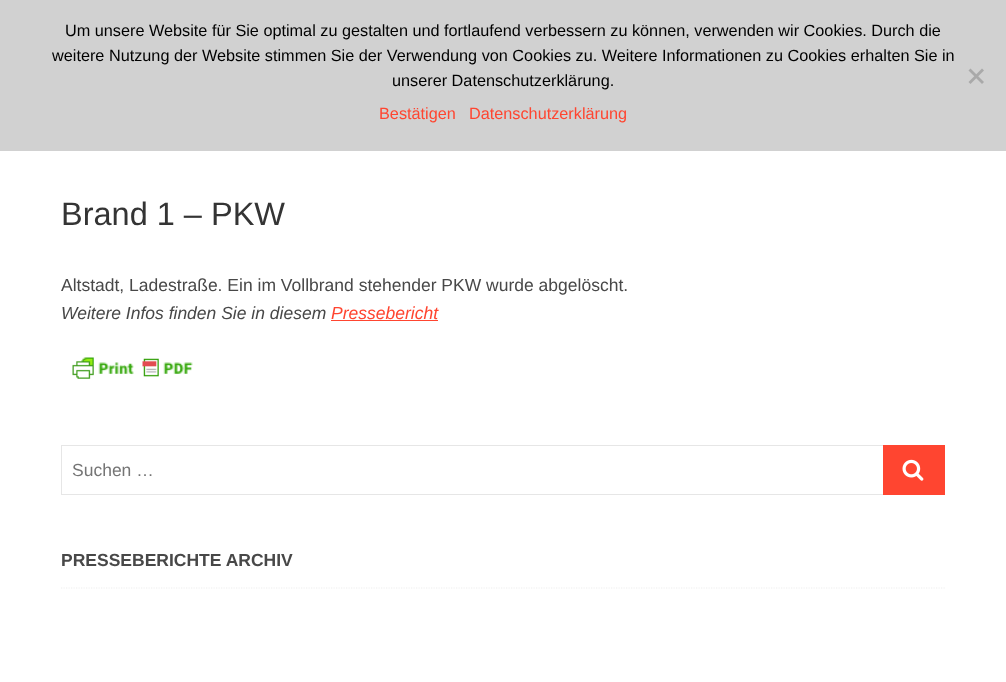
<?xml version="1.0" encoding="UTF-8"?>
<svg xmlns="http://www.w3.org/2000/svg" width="1006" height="682">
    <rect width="100%" height="100%" fill="#FFFFFF"/>
    <rect x="0" y="0" width="1006" height="151" fill="#D1D1D1"/>
    <text x="65" y="36" font-family="Liberation Sans" font-size="16.25" fill="#000000">Um unsere Website für Sie optimal zu gestalten und fortlaufend verbessern zu können, verwenden wir Cookies. Durch die</text>
    <text x="52" y="61" font-family="Liberation Sans" font-size="16.25" fill="#000000">weitere Nutzung der Website stimmen Sie der Verwendung von Cookies zu. Weitere Informationen zu Cookies erhalten Sie in</text>
    <text x="392" y="86" font-family="Liberation Sans" font-size="16.25" fill="#000000">unserer Datenschutzerklärung.</text>
    <path d="M 982 68.5 L 984 70.5 L 970.5 84 L 968.5 82 Z" fill="#A9A9A9"/>
    <path d="M 968.5 70.5 L 970.5 68.5 L 984 82 L 982 84 Z" fill="#A9A9A9"/>
    <text x="379" y="119" font-family="Liberation Sans" font-size="16.25" fill="#FF4530">Bestätigen</text>
    <text x="469" y="119" font-family="Liberation Sans" font-size="16.25" fill="#FF4530">Datenschutzerklärung</text>
    <text x="61" y="225" font-family="Arimo" font-size="32.5" fill="#343434">Brand 1 – PKW</text>
    <text x="61" y="291" font-family="Arimo" font-size="17.5" fill="#484848">Altstadt, Ladestraße. Ein im Vollbrand stehender PKW wurde abgelöscht.</text>
    <text x="61" y="319" font-family="Arimo" font-size="17.5" font-style="italic" fill="#484848">Weitere Infos finden Sie in diesem</text>
    <text x="331" y="319" font-family="Arimo" font-size="17.5" font-style="italic" fill="#FF4530">Pressebericht</text>
    <rect x="331" y="320" width="107" height="1" fill="#FF4530"/>
    <image x="72" y="357" width="121" height="22" href="img_01.png"/>
    <rect x="61.5" y="445.5" width="822" height="49" fill="none" stroke="#E6E6E6"/>
    <text x="72" y="476" font-family="Arimo" font-size="17.5" fill="#757575">Suchen …</text>
    <rect x="883" y="445" width="62" height="50" fill="#FF4530"/>
    <image x="902" y="459" width="22" height="22" href="img_02.png"/>
    <path d="M 61 588 H 946" fill="none" stroke="#EEEEEE" stroke-width="1.2" stroke-dasharray="1.25 1.25"/>
    <text x="61" y="566" font-family="Arimo" font-size="17.5" font-weight="700" fill="#484848">PRESSEBERICHTE ARCHIV</text>
</svg>
